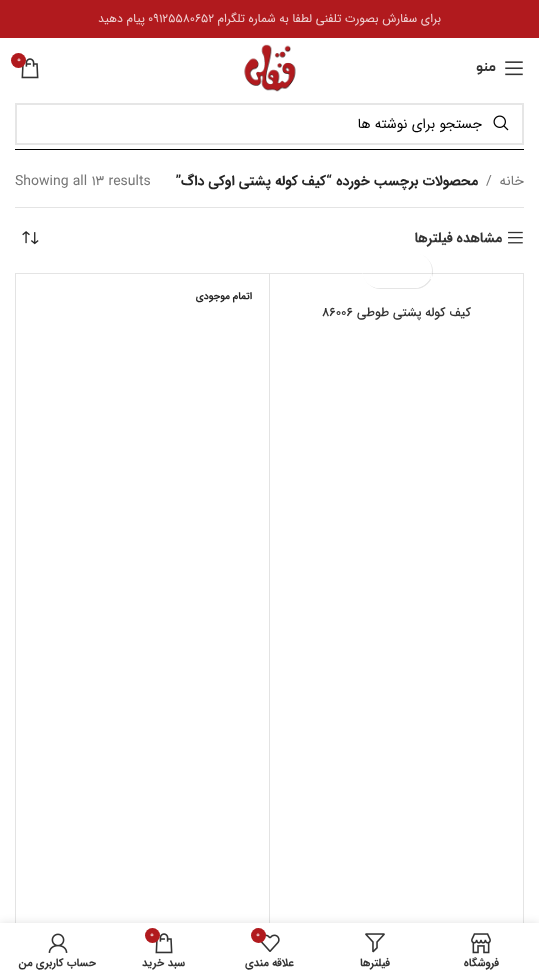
<?xml version="1.0" encoding="UTF-8"?>
<svg xmlns="http://www.w3.org/2000/svg" width="539" height="978">
    <defs>
        <clipPath id="clip1"><path d="M 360 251 H 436 V 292 H 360 Z M 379.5 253 H 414.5 C 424 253 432 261 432 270.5 C 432 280 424 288 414.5 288 H 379.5 C 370 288 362 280 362 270.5 C 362 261 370 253 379.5 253 Z" clip-rule="evenodd"/></clipPath>
        <filter id="blur1" x="-50%" y="-200%" width="200%" height="500%"><feGaussianBlur stdDeviation="0.5"/></filter>
        <filter id="blur2" x="-50%" y="-200%" width="200%" height="500%"><feGaussianBlur stdDeviation="4.5"/></filter>
    </defs>
    <rect width="100%" height="100%" fill="#FFFFFF"/>
    <rect x="0" y="0" width="539" height="38" fill="#B11A1E"/>
    <text x="441" y="22" font-family="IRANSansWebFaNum" font-size="12" direction="rtl" fill="#EFD1D2">برای سفارش بصورت تلفنی لطفا به شماره تلگرام</text>
    <text x="148" y="22" font-family="IRANSansWebFaNum" font-size="12" fill="#EFD1D2">۰۹۱۲۵۵۸۰۶۵۲</text>
    <text x="145" y="22" font-family="IRANSansWebFaNum" font-size="12" direction="rtl" fill="#EFD1D2">پیام دهید</text>
    <image x="244" y="44" width="52" height="48" href="img_01.png"/>
    <image x="21" y="58" width="18" height="21" href="img_02.png"/>
    <circle cx="18.5" cy="60.5" r="7.5" fill="#B11A1E"/>
    <text x="17" y="62" font-family="IRANSansWebFaNum" font-size="9" fill="#FFFFFF">0</text>
    <image x="505" y="61" width="18" height="15" href="img_03.png"/>
    <text x="496" y="71" font-family="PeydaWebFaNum" font-size="14" font-weight="700" direction="rtl" fill="#333333">منو</text>
    <rect x="15" y="149" width="509" height="1" fill="#000000"/>
    <rect x="16" y="104" width="507" height="40" fill="none" stroke="#E6E6E6" stroke-width="2"/>
    <image x="493" y="115" width="16" height="16" href="img_04.png"/>
    <text x="482" y="128" font-family="IRANSansWebFaNum" font-size="14" direction="rtl" fill="#000000">جستجو برای نوشته ها</text>
    <rect x="15" y="207" width="509" height="1" fill="#E4E4E4"/>
    <text x="524" y="185" font-family="IRANSansWebFaNum" font-size="14" direction="rtl" fill="#767676">خانه</text>
    <text x="486" y="185" font-family="IRANSansWebFaNum" font-size="14" fill="#767676">/</text>
    <text x="478" y="185" font-family="IRANSansWebFaNum" font-size="14" font-weight="700" direction="rtl" fill="#242424">محصولات برچسب خورده</text>
    <text x="332" y="185" font-family="IRANSansWebFaNum" font-size="14" font-weight="700" direction="rtl" fill="#242424">“کیف کوله پشتی اوکی داگ”</text>
    <text x="15" y="185" font-family="IRANSansWebFaNum" font-size="14" fill="#767676">Showing all 13 results</text>
    <image x="508" y="231" width="15" height="13" href="img_05.png"/>
    <text x="502" y="242" font-family="IRANSansWebFaNum" font-size="14" font-weight="700" direction="rtl" fill="#333333">مشاهده فیلترها</text>
    <image x="22" y="231" width="17" height="14" href="img_06.png"/>
    <rect x="523" y="273" width="1" height="650" fill="#E4E4E4"/>
    <path d="M 15 273 H 269 V 274 H 16 Z" fill="#E4E4E4"/>
    <path d="M 15 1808 V 273 L 16 274 V 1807 Z" fill="#000000" fill-opacity="0.11"/>
    <text x="252" y="299" font-family="IRANSansWebFaNum" font-size="10" font-weight="700" direction="rtl" fill="#242424">اتمام موجودی</text>
    <path d="M 269 273 H 523 V 274 H 270 Z" fill="#E4E4E4"/>
    <path d="M 269 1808 V 273 L 270 274 V 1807 Z" fill="#000000" fill-opacity="0.11"/>
    <g clip-path="url(#clip1)">
        <rect x="363" y="254" width="70" height="35" rx="17.5" fill="#000000" fill-opacity="0.1" filter="url(#blur1)"/>
    </g>
    <path d="M 362 279 H 432 V 270.5 C 432 280 424 288 414.5 288 H 379.5 C 370 288 362 280 362 270.5 Z" fill="#FFFFFF"/>
    <text x="471" y="316" font-family="IRANSansWebFaNum" font-size="12.5" font-weight="500" direction="rtl" fill="#333333">کیف کوله پشتی طوطی</text>
    <text x="322" y="316" font-family="IRANSansWebFaNum" font-size="12.5" font-weight="500" fill="#333333">86006</text>
    <rect x="0" y="923" width="539" height="55" fill="#000000" fill-opacity="0.12" filter="url(#blur2)"/>
    <rect x="0" y="923" width="539" height="55" fill="#FFFFFF"/>
    <image x="471" y="933" width="20" height="21" href="img_07.png"/>
    <text x="499" y="966" font-family="IRANSansWebFaNum" font-size="11" font-weight="700" direction="rtl" fill="#333333">فروشگاه</text>
    <image x="365" y="933" width="20" height="20" href="img_08.png"/>
    <text x="390" y="966" font-family="IRANSansWebFaNum" font-size="11" font-weight="700" direction="rtl" fill="#333333">فیلترها</text>
    <image x="260" y="934" width="20" height="18" href="img_09.png"/>
    <circle cx="258.5" cy="935.5" r="7.5" fill="#B11A1E"/>
    <text x="256" y="937" font-family="IRANSansWebFaNum" font-size="9" fill="#FFFFFF">0</text>
    <text x="294" y="966" font-family="IRANSansWebFaNum" font-size="11" font-weight="700" direction="rtl" fill="#333333">علاقه مندی</text>
    <image x="155" y="933" width="18" height="21" href="img_02.png"/>
    <circle cx="152.5" cy="935.5" r="7.5" fill="#B11A1E"/>
    <text x="150" y="937" font-family="IRANSansWebFaNum" font-size="9" fill="#FFFFFF">0</text>
    <text x="185" y="966" font-family="IRANSansWebFaNum" font-size="11" font-weight="700" direction="rtl" fill="#333333">سبد خرید</text>
    <image x="48" y="933" width="20" height="20" href="img_10.png"/>
    <text x="96" y="966" font-family="IRANSansWebFaNum" font-size="11" font-weight="700" direction="rtl" fill="#333333">حساب کاربری من</text>
</svg>
